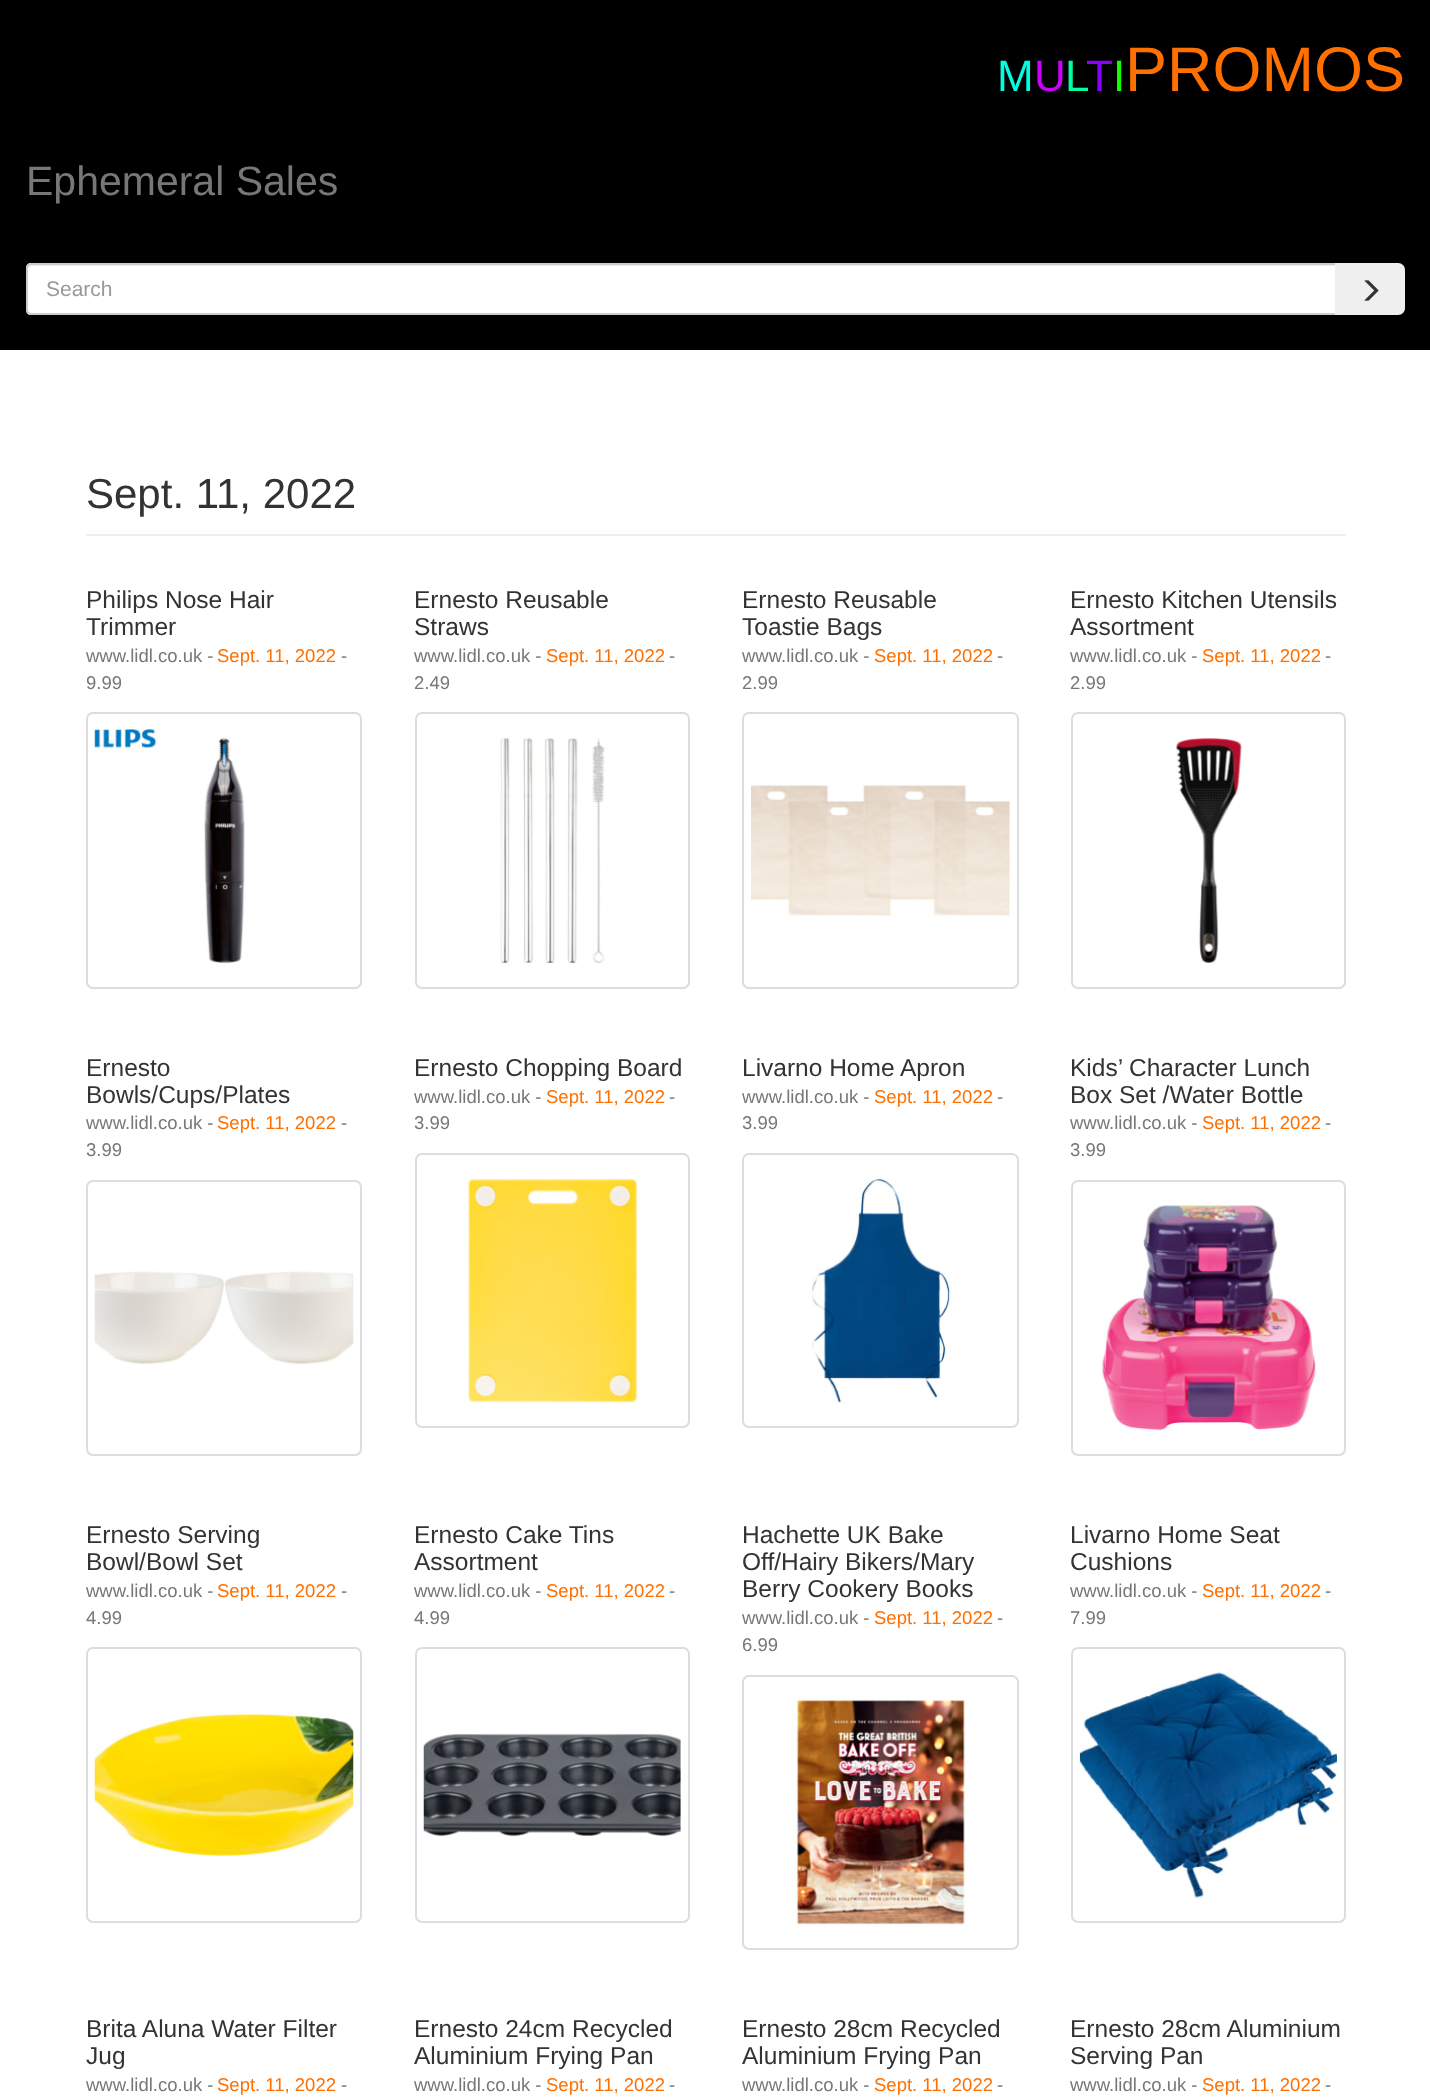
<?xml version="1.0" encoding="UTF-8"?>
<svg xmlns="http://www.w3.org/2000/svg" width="1430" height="2100">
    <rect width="100%" height="100%" fill="#FFFFFF"/>
    <rect x="0" y="0" width="1430" height="350" fill="#000000"/>
    <text x="997" y="91" font-family="Liberation Sans" font-size="44" fill="#00FFE1">M</text>
    <text x="1034" y="91" font-family="Liberation Sans" font-size="44" fill="#CC00FF">U</text>
    <text x="1065" y="91" font-family="Liberation Sans" font-size="44" fill="#00FFA2">L</text>
    <text x="1086" y="91" font-family="Liberation Sans" font-size="44" fill="#8C00FF">T</text>
    <text x="1113" y="91" font-family="Liberation Sans" font-size="44" fill="#15FF00">I</text>
    <text x="1125" y="91" font-family="Liberation Sans" font-size="63" fill="#FF7000">PROMOS</text>
    <text x="26" y="195" font-family="Liberation Sans" font-size="41" fill="#777777">Ephemeral Sales</text>
    <path d="M 31 263 H 1337 V 315 H 31 C 28 315 26 313 26 310 V 268 C 26 265 28 263 31 263 Z" fill="#FFFFFF"/>
    <path d="M 32 266 H 1335 V 264 H 32 C 28 264 28 267 28 270 C 28 268 30 266 32 266 Z" fill="#ECECEC"/>
    <path d="M 31 264 H 1336 V 314 H 31 C 29 314 27 312 27 310 V 268 C 27 266 29 264 31 264 Z" fill="none" stroke="#CCCCCC" stroke-width="2"/>
    <text x="46" y="296" font-family="Liberation Sans" font-size="21" fill="#999999">Search</text>
    <path d="M 1335 263 H 1398 C 1402 263 1405 266 1405 270 V 308 C 1405 312 1402 315 1398 315 H 1335 Z" fill="#EFEFEF"/>
    <image x="1364" y="280" width="15" height="21" href="img_01.png"/>
    <rect x="86" y="534" width="1260" height="2" fill="#EEEEEE"/>
    <text x="86" y="508" font-family="Liberation Sans" font-size="42" fill="#333333">Sept. 11, 2022</text>
    <text font-family="Liberation Sans" font-size="24.5" fill="#333333">
        <tspan x="86" y="608">Philips Nose Hair</tspan>
        <tspan x="86" y="635">Trimmer</tspan>
    </text>
    <text x="86" y="662" font-family="Liberation Sans" font-size="18.5" fill="#777777">www.lidl.co.uk -</text>
    <text x="217" y="662" font-family="Liberation Sans" font-size="18.5" fill="#FF7000">Sept. 11, 2022</text>
    <text x="341" y="662" font-family="Liberation Sans" font-size="18.5" fill="#777777">-</text>
    <text x="86" y="689" font-family="Liberation Sans" font-size="18.5" fill="#777777">9.99</text>
    <rect x="87" y="713" width="274" height="275" rx="6" fill="none" stroke="#DDDDDD" stroke-width="2"/>
    <image x="94" y="729" width="151" height="235" href="img_02.png"/>
    <text font-family="Liberation Sans" font-size="24.5" fill="#333333">
        <tspan x="414" y="608">Ernesto Reusable</tspan>
        <tspan x="414" y="635">Straws</tspan>
    </text>
    <text x="414" y="662" font-family="Liberation Sans" font-size="18.5" fill="#777777">www.lidl.co.uk -</text>
    <text x="546" y="662" font-family="Liberation Sans" font-size="18.5" fill="#FF7000">Sept. 11, 2022</text>
    <text x="669" y="662" font-family="Liberation Sans" font-size="18.5" fill="#777777">-</text>
    <text x="414" y="689" font-family="Liberation Sans" font-size="18.5" fill="#777777">2.49</text>
    <rect x="416" y="713" width="273" height="275" rx="6" fill="none" stroke="#DDDDDD" stroke-width="2"/>
    <image x="500" y="737" width="105" height="227" href="img_03.png"/>
    <text font-family="Liberation Sans" font-size="24.5" fill="#333333">
        <tspan x="742" y="608">Ernesto Reusable</tspan>
        <tspan x="742" y="635">Toastie Bags</tspan>
    </text>
    <text x="742" y="662" font-family="Liberation Sans" font-size="18.5" fill="#777777">www.lidl.co.uk -</text>
    <text x="874" y="662" font-family="Liberation Sans" font-size="18.5" fill="#FF7000">Sept. 11, 2022</text>
    <text x="997" y="662" font-family="Liberation Sans" font-size="18.5" fill="#777777">-</text>
    <text x="742" y="689" font-family="Liberation Sans" font-size="18.5" fill="#777777">2.99</text>
    <rect x="743" y="713" width="275" height="275" rx="6" fill="none" stroke="#DDDDDD" stroke-width="2"/>
    <image x="751" y="784" width="259" height="132" href="img_04.png"/>
    <text font-family="Liberation Sans" font-size="24.5" fill="#333333">
        <tspan x="1070" y="608">Ernesto Kitchen Utensils</tspan>
        <tspan x="1070" y="635">Assortment</tspan>
    </text>
    <text x="1070" y="662" font-family="Liberation Sans" font-size="18.5" fill="#777777">www.lidl.co.uk -</text>
    <text x="1202" y="662" font-family="Liberation Sans" font-size="18.5" fill="#FF7000">Sept. 11, 2022</text>
    <text x="1325" y="662" font-family="Liberation Sans" font-size="18.5" fill="#777777">-</text>
    <text x="1070" y="689" font-family="Liberation Sans" font-size="18.5" fill="#777777">2.99</text>
    <rect x="1072" y="713" width="273" height="275" rx="6" fill="none" stroke="#DDDDDD" stroke-width="2"/>
    <image x="1176" y="738" width="66" height="226" href="img_05.png"/>
    <text font-family="Liberation Sans" font-size="24.5" fill="#333333">
        <tspan x="86" y="1076">Ernesto</tspan>
        <tspan x="86" y="1103">Bowls/Cups/Plates</tspan>
    </text>
    <text x="86" y="1129" font-family="Liberation Sans" font-size="18.5" fill="#777777">www.lidl.co.uk -</text>
    <text x="217" y="1129" font-family="Liberation Sans" font-size="18.5" fill="#FF7000">Sept. 11, 2022</text>
    <text x="341" y="1129" font-family="Liberation Sans" font-size="18.5" fill="#777777">-</text>
    <text x="86" y="1156" font-family="Liberation Sans" font-size="18.5" fill="#777777">3.99</text>
    <rect x="87" y="1181" width="274" height="274" rx="6" fill="none" stroke="#DDDDDD" stroke-width="2"/>
    <image x="94" y="1271" width="260" height="94" href="img_06.png"/>
    <text x="414" y="1076" font-family="Liberation Sans" font-size="24.5" fill="#333333">Ernesto Chopping Board</text>
    <text x="414" y="1103" font-family="Liberation Sans" font-size="18.5" fill="#777777">www.lidl.co.uk -</text>
    <text x="546" y="1103" font-family="Liberation Sans" font-size="18.5" fill="#FF7000">Sept. 11, 2022</text>
    <text x="669" y="1103" font-family="Liberation Sans" font-size="18.5" fill="#777777">-</text>
    <text x="414" y="1129" font-family="Liberation Sans" font-size="18.5" fill="#777777">3.99</text>
    <rect x="416" y="1154" width="273" height="273" rx="6" fill="none" stroke="#DDDDDD" stroke-width="2"/>
    <image x="465" y="1178" width="174" height="225" href="img_07.png"/>
    <text x="742" y="1076" font-family="Liberation Sans" font-size="24.5" fill="#333333">Livarno Home Apron</text>
    <text x="742" y="1103" font-family="Liberation Sans" font-size="18.5" fill="#777777">www.lidl.co.uk -</text>
    <text x="874" y="1103" font-family="Liberation Sans" font-size="18.5" fill="#FF7000">Sept. 11, 2022</text>
    <text x="997" y="1103" font-family="Liberation Sans" font-size="18.5" fill="#777777">-</text>
    <text x="742" y="1129" font-family="Liberation Sans" font-size="18.5" fill="#777777">3.99</text>
    <rect x="743" y="1154" width="275" height="273" rx="6" fill="none" stroke="#DDDDDD" stroke-width="2"/>
    <image x="811" y="1178" width="141" height="225" href="img_08.png"/>
    <text font-family="Liberation Sans" font-size="24.5" fill="#333333">
        <tspan x="1070" y="1076">Kids’ Character Lunch</tspan>
        <tspan x="1070" y="1103">Box Set /Water Bottle</tspan>
    </text>
    <text x="1070" y="1129" font-family="Liberation Sans" font-size="18.5" fill="#777777">www.lidl.co.uk -</text>
    <text x="1202" y="1129" font-family="Liberation Sans" font-size="18.5" fill="#FF7000">Sept. 11, 2022</text>
    <text x="1325" y="1129" font-family="Liberation Sans" font-size="18.5" fill="#777777">-</text>
    <text x="1070" y="1156" font-family="Liberation Sans" font-size="18.5" fill="#777777">3.99</text>
    <rect x="1072" y="1181" width="273" height="274" rx="6" fill="none" stroke="#DDDDDD" stroke-width="2"/>
    <image x="1101" y="1205" width="216" height="226" href="img_09.png"/>
    <text font-family="Liberation Sans" font-size="24.5" fill="#333333">
        <tspan x="86" y="1543">Ernesto Serving</tspan>
        <tspan x="86" y="1570">Bowl/Bowl Set</tspan>
    </text>
    <text x="86" y="1597" font-family="Liberation Sans" font-size="18.5" fill="#777777">www.lidl.co.uk -</text>
    <text x="217" y="1597" font-family="Liberation Sans" font-size="18.5" fill="#FF7000">Sept. 11, 2022</text>
    <text x="341" y="1597" font-family="Liberation Sans" font-size="18.5" fill="#777777">-</text>
    <text x="86" y="1624" font-family="Liberation Sans" font-size="18.5" fill="#777777">4.99</text>
    <rect x="87" y="1648" width="274" height="274" rx="6" fill="none" stroke="#DDDDDD" stroke-width="2"/>
    <image x="94" y="1712" width="260" height="146" href="img_10.png"/>
    <text font-family="Liberation Sans" font-size="24.5" fill="#333333">
        <tspan x="414" y="1543">Ernesto Cake Tins</tspan>
        <tspan x="414" y="1570">Assortment</tspan>
    </text>
    <text x="414" y="1597" font-family="Liberation Sans" font-size="18.5" fill="#777777">www.lidl.co.uk -</text>
    <text x="546" y="1597" font-family="Liberation Sans" font-size="18.5" fill="#FF7000">Sept. 11, 2022</text>
    <text x="669" y="1597" font-family="Liberation Sans" font-size="18.5" fill="#777777">-</text>
    <text x="414" y="1624" font-family="Liberation Sans" font-size="18.5" fill="#777777">4.99</text>
    <rect x="416" y="1648" width="273" height="274" rx="6" fill="none" stroke="#DDDDDD" stroke-width="2"/>
    <image x="423" y="1733" width="258" height="104" href="img_11.png"/>
    <text font-family="Liberation Sans" font-size="24.5" fill="#333333">
        <tspan x="742" y="1543">Hachette UK Bake</tspan>
        <tspan x="742" y="1570">Off/Hairy Bikers/Mary</tspan>
        <tspan x="742" y="1597">Berry Cookery Books</tspan>
    </text>
    <text x="742" y="1624" font-family="Liberation Sans" font-size="18.5" fill="#777777">www.lidl.co.uk -</text>
    <text x="874" y="1624" font-family="Liberation Sans" font-size="18.5" fill="#FF7000">Sept. 11, 2022</text>
    <text x="997" y="1624" font-family="Liberation Sans" font-size="18.5" fill="#777777">-</text>
    <text x="742" y="1651" font-family="Liberation Sans" font-size="18.5" fill="#777777">6.99</text>
    <rect x="743" y="1676" width="275" height="273" rx="6" fill="none" stroke="#DDDDDD" stroke-width="2"/>
    <image x="792" y="1699" width="174" height="226" href="img_12.png"/>
    <text font-family="Liberation Sans" font-size="24.5" fill="#333333">
        <tspan x="1070" y="1543">Livarno Home Seat</tspan>
        <tspan x="1070" y="1570">Cushions</tspan>
    </text>
    <text x="1070" y="1597" font-family="Liberation Sans" font-size="18.5" fill="#777777">www.lidl.co.uk -</text>
    <text x="1202" y="1597" font-family="Liberation Sans" font-size="18.5" fill="#FF7000">Sept. 11, 2022</text>
    <text x="1325" y="1597" font-family="Liberation Sans" font-size="18.5" fill="#777777">-</text>
    <text x="1070" y="1624" font-family="Liberation Sans" font-size="18.5" fill="#777777">7.99</text>
    <rect x="1072" y="1648" width="273" height="274" rx="6" fill="none" stroke="#DDDDDD" stroke-width="2"/>
    <image x="1079" y="1672" width="258" height="227" href="img_13.png"/>
    <text font-family="Liberation Sans" font-size="24.5" fill="#333333">
        <tspan x="86" y="2037">Brita Aluna Water Filter</tspan>
        <tspan x="86" y="2064">Jug</tspan>
    </text>
    <text x="86" y="2091" font-family="Liberation Sans" font-size="18.5" fill="#777777">www.lidl.co.uk -</text>
    <text x="217" y="2091" font-family="Liberation Sans" font-size="18.5" fill="#FF7000">Sept. 11, 2022</text>
    <text x="341" y="2091" font-family="Liberation Sans" font-size="18.5" fill="#777777">-</text>
    <text font-family="Liberation Sans" font-size="24.5" fill="#333333">
        <tspan x="414" y="2037">Ernesto 24cm Recycled</tspan>
        <tspan x="414" y="2064">Aluminium Frying Pan</tspan>
    </text>
    <text x="414" y="2091" font-family="Liberation Sans" font-size="18.5" fill="#777777">www.lidl.co.uk -</text>
    <text x="546" y="2091" font-family="Liberation Sans" font-size="18.5" fill="#FF7000">Sept. 11, 2022</text>
    <text x="669" y="2091" font-family="Liberation Sans" font-size="18.5" fill="#777777">-</text>
    <text font-family="Liberation Sans" font-size="24.5" fill="#333333">
        <tspan x="742" y="2037">Ernesto 28cm Recycled</tspan>
        <tspan x="742" y="2064">Aluminium Frying Pan</tspan>
    </text>
    <text x="742" y="2091" font-family="Liberation Sans" font-size="18.5" fill="#777777">www.lidl.co.uk -</text>
    <text x="874" y="2091" font-family="Liberation Sans" font-size="18.5" fill="#FF7000">Sept. 11, 2022</text>
    <text x="997" y="2091" font-family="Liberation Sans" font-size="18.5" fill="#777777">-</text>
    <text font-family="Liberation Sans" font-size="24.5" fill="#333333">
        <tspan x="1070" y="2037">Ernesto 28cm Aluminium</tspan>
        <tspan x="1070" y="2064">Serving Pan</tspan>
    </text>
    <text x="1070" y="2091" font-family="Liberation Sans" font-size="18.5" fill="#777777">www.lidl.co.uk -</text>
    <text x="1202" y="2091" font-family="Liberation Sans" font-size="18.5" fill="#FF7000">Sept. 11, 2022</text>
    <text x="1325" y="2091" font-family="Liberation Sans" font-size="18.5" fill="#777777">-</text>
</svg>
